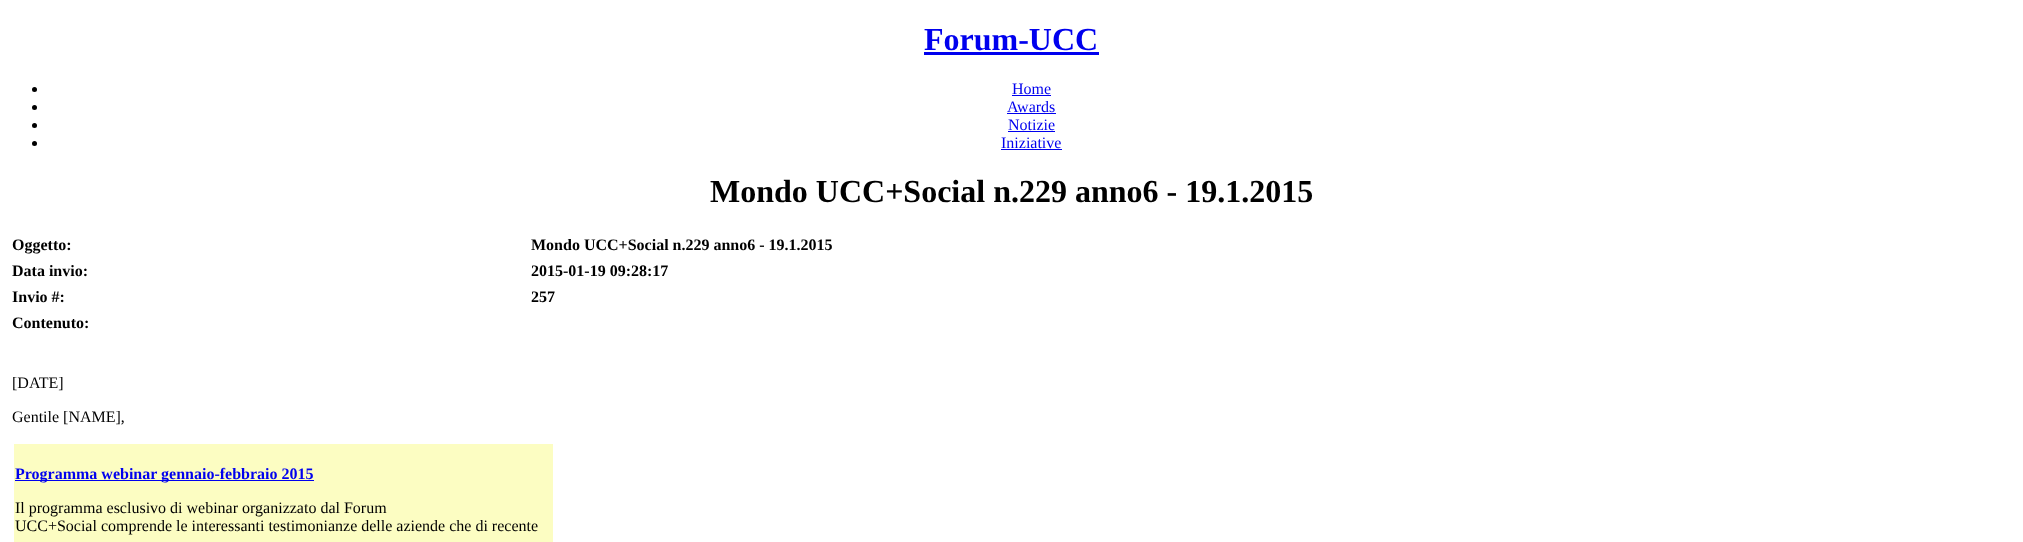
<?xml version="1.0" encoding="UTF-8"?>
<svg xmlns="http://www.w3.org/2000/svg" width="2023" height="542">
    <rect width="100%" height="100%" fill="#FFFFFF"/>
    <text x="924" y="50" font-family="Liberation Serif" font-size="32" font-weight="700" fill="#0000EE">Forum-UCC</text>
    <rect x="924" y="52" width="175" height="3" fill="#0000EE"/>
    <circle cx="34.5" cy="89.5" r="2.5" fill="#000000"/>
    <text x="1012" y="94" font-family="Liberation Serif" font-size="16" fill="#0000EE">Home</text>
    <rect x="1012" y="95" width="39" height="1" fill="#0000EE"/>
    <circle cx="34.5" cy="107.5" r="2.5" fill="#000000"/>
    <text x="1007" y="112" font-family="Liberation Serif" font-size="16" fill="#0000EE">Awards</text>
    <rect x="1007" y="113" width="49" height="1" fill="#0000EE"/>
    <circle cx="34.5" cy="125.5" r="2.5" fill="#000000"/>
    <text x="1008" y="130" font-family="Liberation Serif" font-size="16" fill="#0000EE">Notizie</text>
    <rect x="1008" y="131" width="47" height="1" fill="#0000EE"/>
    <circle cx="34.5" cy="143.5" r="2.5" fill="#000000"/>
    <text x="1001" y="148" font-family="Liberation Serif" font-size="16" fill="#0000EE">Iniziative</text>
    <rect x="1001" y="149" width="61" height="1" fill="#0000EE"/>
    <text x="710" y="202" font-family="Liberation Serif" font-size="32" font-weight="700" fill="#000000">Mondo UCC+Social n.229 anno6 - 19.1.2015</text>
    <text x="12" y="250" font-family="Liberation Serif" font-size="16" font-weight="700" fill="#000000">Oggetto:</text>
    <text x="531" y="250" font-family="Liberation Serif" font-size="16" font-weight="700" fill="#000000">Mondo UCC+Social n.229 anno6 - 19.1.2015</text>
    <text x="12" y="276" font-family="Liberation Serif" font-size="16" font-weight="700" fill="#000000">Data invio:</text>
    <text x="531" y="276" font-family="Liberation Serif" font-size="16" font-weight="700" fill="#000000">2015-01-19 09:28:17</text>
    <text x="12" y="302" font-family="Liberation Serif" font-size="16" font-weight="700" fill="#000000">Invio #:</text>
    <text x="531" y="302" font-family="Liberation Serif" font-size="16" font-weight="700" fill="#000000">257</text>
    <text x="12" y="328" font-family="Liberation Serif" font-size="16" font-weight="700" fill="#000000">Contenuto:</text>
    <text x="12" y="388" font-family="Liberation Serif" font-size="16" fill="#000000">[DATE]</text>
    <text x="12" y="422" font-family="Liberation Serif" font-size="16" fill="#000000">Gentile [NAME],</text>
    <rect x="14" y="444" width="539" height="98" fill="#FCFDC2"/>
    <rect x="15" y="480" width="299" height="1" fill="#0000EE"/>
    <text x="15" y="479" font-family="Liberation Serif" font-size="16" font-weight="700" fill="#0000EE">Programma webinar gennaio-febbraio 2015</text>
    <text font-family="Liberation Serif" font-size="16" fill="#000000">
        <tspan x="15" y="513">Il programma esclusivo di webinar organizzato dal Forum</tspan>
        <tspan x="15" y="531">UCC+Social comprende le interessanti testimonianze delle aziende che di recente</tspan>
    </text>
</svg>
